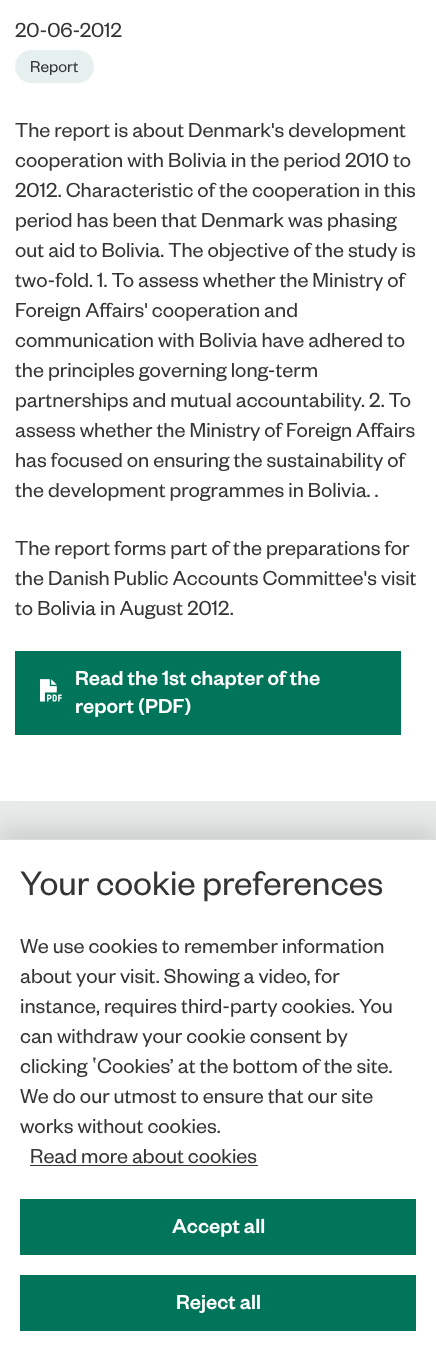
<?xml version="1.0" encoding="UTF-8"?>
<svg xmlns="http://www.w3.org/2000/svg" width="436" height="1351">
    <defs>
        <filter id="blur1" x="-50%" y="-200%" width="200%" height="500%"><feGaussianBlur stdDeviation="9.5"/></filter>
    </defs>
    <rect width="100%" height="100%" fill="#E8EAEA"/>
    <rect x="0" y="0" width="436" height="801" fill="#FFFFFF"/>
    <text x="15" y="37" font-family="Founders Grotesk" font-size="22.4" fill="#353535">20-06-2012</text>
    <rect x="15" y="50" width="79" height="33" rx="16.5" fill="#E6F1EF"/>
    <text x="30" y="72" font-family="Founders Grotesk" font-size="17.5" fill="#353535">Report</text>
    <text font-family="Founders Grotesk" font-size="22.4" fill="#353535">
        <tspan x="15" y="137">The report is about Denmark's development</tspan>
        <tspan x="15" y="167">cooperation with Bolivia in the period 2010 to</tspan>
        <tspan x="15" y="197">2012. Characteristic of the cooperation in this</tspan>
        <tspan x="15" y="227">period has been that Denmark was phasing</tspan>
        <tspan x="15" y="257">out aid to Bolivia. The objective of the study is</tspan>
        <tspan x="15" y="287">two-fold. 1. To assess whether the Ministry of</tspan>
        <tspan x="15" y="317">Foreign Affairs' cooperation and</tspan>
        <tspan x="15" y="347">communication with Bolivia have adhered to</tspan>
        <tspan x="15" y="377">the principles governing long-term</tspan>
        <tspan x="15" y="407">partnerships and mutual accountability. 2. To</tspan>
        <tspan x="15" y="437">assess whether the Ministry of Foreign Affairs</tspan>
        <tspan x="15" y="467">has focused on ensuring the sustainability of</tspan>
        <tspan x="15" y="497">the development programmes in Bolivia. .</tspan>
    </text>
    <text font-family="Founders Grotesk" font-size="22.4" fill="#353535">
        <tspan x="15" y="555">The report forms part of the preparations for</tspan>
        <tspan x="15" y="585">the Danish Public Accounts Committee's visit</tspan>
        <tspan x="15" y="615">to Bolivia in August 2012.</tspan>
    </text>
    <rect x="15" y="651" width="386" height="84" fill="#00755A"/>
    <image x="40" y="679" width="22" height="23" href="img_01.png"/>
    <text font-family="Founders Grotesk" font-size="22.4" font-weight="500" fill="#FFFFFF">
        <tspan x="75" y="685">Read the 1st chapter of the</tspan>
        <tspan x="75" y="713">report (PDF)</tspan>
    </text>
    <rect x="0" y="826" width="436" height="513" fill="#000000" fill-opacity="0.1" filter="url(#blur1)"/>
    <rect x="0" y="840" width="436" height="511" fill="#FFFFFF"/>
    <rect x="0" y="839" width="436" height="1" fill="#DDDDDD"/>
    <text x="20" y="895" font-family="Founders Grotesk" font-size="37.5" fill="#353535">Your cookie preferences</text>
    <text font-family="Founders Grotesk" font-size="22.4" fill="#353535">
        <tspan x="20" y="953">We use cookies to remember information</tspan>
        <tspan x="20" y="983">about your visit. Showing a video, for</tspan>
        <tspan x="20" y="1013">instance, requires third-party cookies. You</tspan>
        <tspan x="20" y="1043">can withdraw your cookie consent by</tspan>
        <tspan x="20" y="1073">clicking</tspan>
    </text>
    <text x="92" y="1073" font-family="Liberation Sans" font-size="22.4" fill="#353535">‛</text>
    <text x="97" y="1073" font-family="Founders Grotesk" font-size="22.4" fill="#353535">Cookies’ at the bottom of the site.</text>
    <text font-family="Founders Grotesk" font-size="22.4" fill="#353535">
        <tspan x="20" y="1103">We do our utmost to ensure that our site</tspan>
        <tspan x="20" y="1133">works without cookies.</tspan>
    </text>
    <text x="30" y="1163" font-family="Founders Grotesk" font-size="22.4" fill="#353535">Read more about cookies</text>
    <rect x="30" y="1165" width="228" height="1" fill="#353535"/>
    <rect x="20" y="1199" width="396" height="56" fill="#00755A"/>
    <text x="172" y="1233" font-family="Founders Grotesk" font-size="22.4" font-weight="500" fill="#FFFFFF">Accept all</text>
    <rect x="20" y="1275" width="396" height="56" fill="#00755A"/>
    <text x="176" y="1309" font-family="Founders Grotesk" font-size="22.4" font-weight="500" fill="#FFFFFF">Reject all</text>
</svg>
